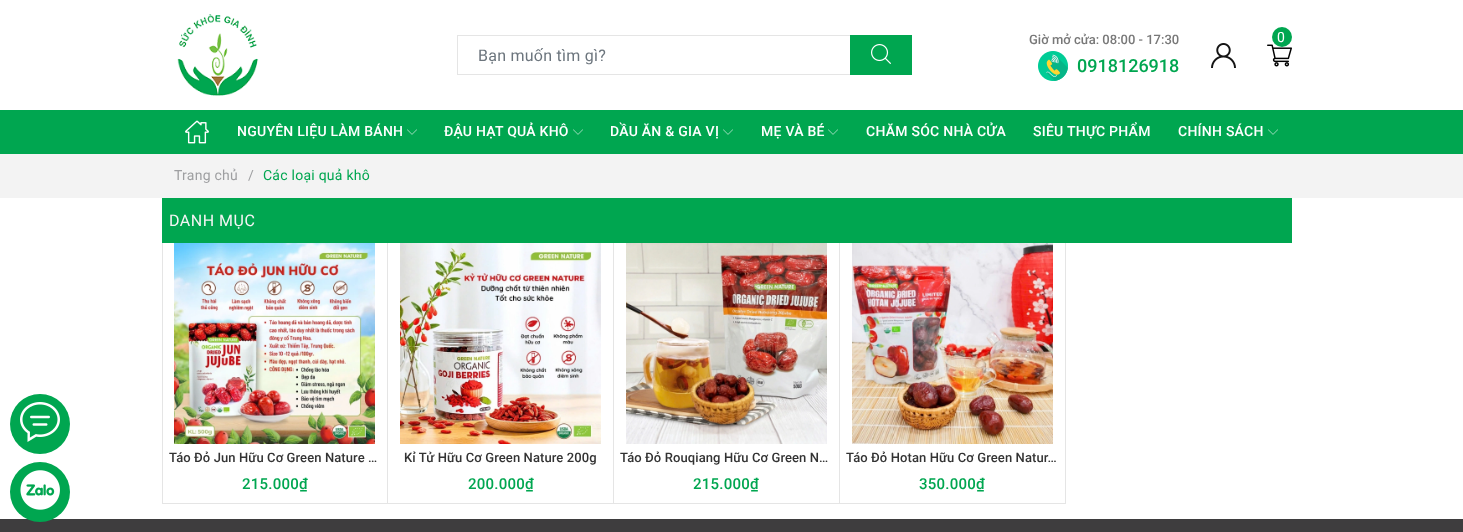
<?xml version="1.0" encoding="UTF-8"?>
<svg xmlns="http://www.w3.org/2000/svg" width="1463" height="532">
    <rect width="100%" height="100%" fill="#FFFFFF"/>
    <image x="177" y="14" width="82" height="82" href="img_01.png"/>
    <rect x="457.5" y="35.5" width="393" height="39" fill="none" stroke="#E5E5E5"/>
    <text x="478" y="61" font-family="Roboto" font-size="16" letter-spacing="0.25" fill="#6C757D">Bạn muốn tìm gì?</text>
    <rect x="850" y="35" width="62" height="40" fill="#00A650"/>
    <image x="871" y="44" width="20" height="20" href="img_02.png"/>
    <text x="1029" y="44" font-family="Roboto" font-size="13" font-weight="500" fill="#787878">Giờ mở cửa: 08:00 - 17:30</text>
    <image x="1038" y="51" width="30" height="30" href="img_03.png"/>
    <text x="1077" y="72" font-family="Roboto" font-size="18" font-weight="500" fill="#00A650">0918126918</text>
    <image x="1211" y="43" width="25" height="25" href="img_04.png"/>
    <image x="1267" y="44" width="25" height="23" href="img_05.png"/>
    <circle cx="1282" cy="37" r="10" fill="#00A650"/>
    <text x="1277" y="42" font-family="Roboto" font-size="14" letter-spacing="0.25" fill="#FFFFFF">0</text>
    <rect x="0" y="110" width="1463" height="44" fill="#00A650"/>
    <image x="185" y="120" width="24" height="24" href="img_06.png"/>
    <text x="237" y="136" font-family="Roboto" font-size="14" font-weight="500" letter-spacing="0.25" fill="#FFFFFF">NGUYÊN LIỆU LÀM BÁNH</text>
    <image x="407" y="129" width="10" height="6" href="img_07.png"/>
    <text x="444" y="136" font-family="Roboto" font-size="14" font-weight="500" letter-spacing="0.25" fill="#FFFFFF">ĐẬU HẠT QUẢ KHÔ</text>
    <image x="573" y="129" width="10" height="6" href="img_07.png"/>
    <text x="610" y="136" font-family="Roboto" font-size="14" font-weight="500" letter-spacing="0.25" fill="#FFFFFF">DẦU ĂN &amp; GIA VỊ</text>
    <image x="723" y="129" width="10" height="6" href="img_07.png"/>
    <text x="761" y="136" font-family="Roboto" font-size="14" font-weight="500" letter-spacing="0.25" fill="#FFFFFF">MẸ VÀ BÉ</text>
    <image x="828" y="129" width="10" height="6" href="img_07.png"/>
    <text x="866" y="136" font-family="Roboto" font-size="14" font-weight="500" letter-spacing="0.25" fill="#FFFFFF">CHĂM SÓC NHÀ CỬA</text>
    <text x="1033" y="136" font-family="Roboto" font-size="14" font-weight="500" letter-spacing="0.25" fill="#FFFFFF">SIÊU THỰC PHẨM</text>
    <text x="1178" y="136" font-family="Roboto" font-size="14" font-weight="500" letter-spacing="0.25" fill="#FFFFFF">CHÍNH SÁCH</text>
    <image x="1268" y="129" width="10" height="6" href="img_07.png"/>
    <rect x="0" y="154" width="1463" height="44" fill="#F3F3F3"/>
    <text x="174" y="180" font-family="Roboto" font-size="14" letter-spacing="0.25" fill="#9E9FA1">Trang chủ</text>
    <text x="248" y="180" font-family="Roboto" font-size="14" letter-spacing="0.25" fill="#9E9FA1">/</text>
    <text x="263" y="180" font-family="Roboto" font-size="14" letter-spacing="0.25" fill="#00A650">Các loại quả khô</text>
    <circle cx="40" cy="424" r="30" fill="#00A650"/>
    <image x="20" y="402" width="40" height="40" href="img_08.png"/>
    <rect x="0" y="519" width="1463" height="13" fill="#3E3D3E"/>
    <circle cx="40" cy="492" r="30" fill="#00A650"/>
    <image x="20" y="470" width="40" height="40" href="img_09.png"/>
    <rect x="162" y="198" width="1130" height="45" fill="#00A650"/>
    <text x="169" y="226" font-family="Roboto" font-size="16" letter-spacing="0.5" fill="#F5F5F5">DANH MỤC</text>
    <rect x="162" y="243" width="1" height="261" fill="#E5E5E5"/>
    <rect x="387" y="243" width="1" height="261" fill="#E5E5E5"/>
    <rect x="163" y="503" width="225" height="1" fill="#E5E5E5"/>
    <image x="174" y="243" width="201" height="201" href="img_10.png"/>
    <text x="169" y="462" font-family="Roboto" font-size="13" font-weight="500" letter-spacing="0.1" fill="#333333">Táo Đỏ Jun Hữu Cơ Green Nature …</text>
    <text x="242" y="489" font-family="Roboto" font-size="15" font-weight="500" letter-spacing="0.25" fill="#00A650">215.000₫</text>
    <rect x="613" y="243" width="1" height="261" fill="#E5E5E5"/>
    <rect x="388" y="503" width="226" height="1" fill="#E5E5E5"/>
    <image x="400" y="243" width="201" height="201" href="img_11.png"/>
    <text x="404" y="462" font-family="Roboto" font-size="13" font-weight="500" letter-spacing="0.1" fill="#333333">Kỉ Tử Hữu Cơ Green Nature 200g</text>
    <text x="468" y="489" font-family="Roboto" font-size="15" font-weight="500" letter-spacing="0.25" fill="#00A650">200.000₫</text>
    <rect x="839" y="243" width="1" height="261" fill="#E5E5E5"/>
    <rect x="614" y="503" width="226" height="1" fill="#E5E5E5"/>
    <image x="626" y="243" width="201" height="201" href="img_12.png"/>
    <text x="620" y="462" font-family="Roboto" font-size="13" font-weight="500" letter-spacing="0.1" fill="#333333">Táo Đỏ Rouqiang Hữu Cơ Green N…</text>
    <text x="693" y="489" font-family="Roboto" font-size="15" font-weight="500" letter-spacing="0.25" fill="#00A650">215.000₫</text>
    <rect x="1065" y="243" width="1" height="261" fill="#E5E5E5"/>
    <rect x="840" y="503" width="226" height="1" fill="#E5E5E5"/>
    <image x="852" y="243" width="201" height="201" href="img_13.png"/>
    <text x="846" y="462" font-family="Roboto" font-size="13" font-weight="500" letter-spacing="0.1" fill="#333333">Táo Đỏ Hotan Hữu Cơ Green Natur…</text>
    <text x="919" y="489" font-family="Roboto" font-size="15" font-weight="500" letter-spacing="0.25" fill="#00A650">350.000₫</text>
</svg>
